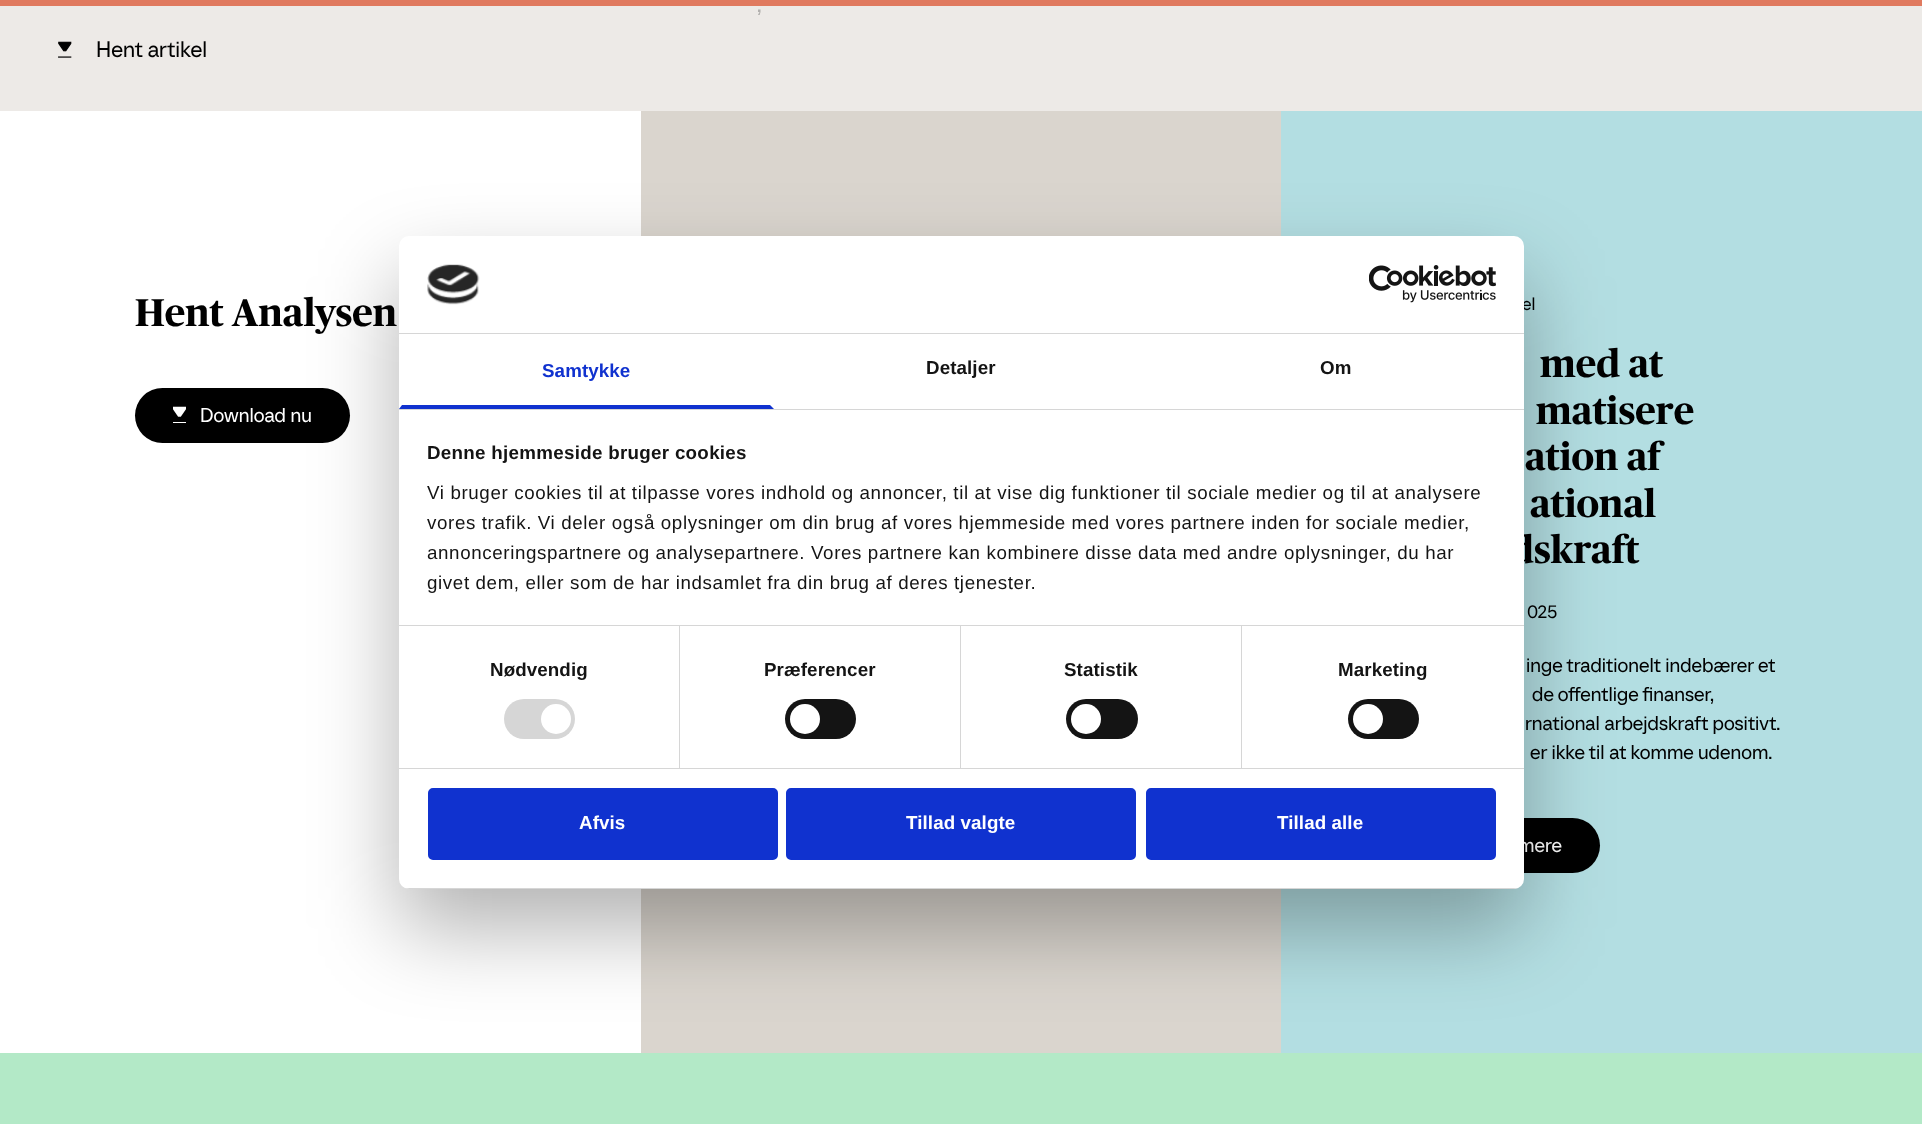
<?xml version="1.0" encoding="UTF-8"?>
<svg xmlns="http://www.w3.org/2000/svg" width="1922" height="1124">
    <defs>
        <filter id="blur1" x="-50%" y="-200%" width="200%" height="500%"><feGaussianBlur stdDeviation="42.5"/></filter>
        <clipPath id="clip1"><rect x="399" y="236" width="1125" height="653" rx="10"/></clipPath>
    </defs>
    <rect width="100%" height="100%" fill="#EDEAE7"/>
    <rect x="0" y="0" width="1922" height="6" fill="#E07A5F"/>
    <text x="757" y="12" font-family="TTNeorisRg" font-size="22.5" fill="#B2B0AE">,</text>
    <image x="58" y="41" width="14" height="17" href="img_01.png"/>
    <text x="96" y="57" font-family="TTNeorisRg" font-size="22.5" fill="#000000">Hent artikel</text>
    <rect x="0" y="111" width="641" height="942" fill="#FFFFFF"/>
    <text x="135" y="326" font-family="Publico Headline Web" font-size="38.75" font-weight="700" fill="#000000">Hent Analysen</text>
    <rect x="135" y="388" width="215" height="55" rx="27.5" fill="#000000"/>
    <image x="173" y="406" width="13" height="17" href="img_02.png"/>
    <text x="200" y="422" font-family="TTNeorisRg" font-size="20" fill="#FFFFFF">Download nu</text>
    <rect x="641" y="111" width="640" height="942" fill="#DAD5CE"/>
    <rect x="1281" y="111" width="641" height="942" fill="#B3DEE2"/>
    <text x="1522" y="310" font-family="TTNeorisRg" font-size="18" fill="#000000">el</text>
    <text x="1540" y="377" font-family="Publico Headline Web" font-size="38.75" font-weight="700" fill="#000000">med at</text>
    <text x="1536" y="424" font-family="Publico Headline Web" font-size="38.75" font-weight="700" fill="#000000">matisere</text>
    <text x="1525" y="470" font-family="Publico Headline Web" font-size="38.75" font-weight="700" fill="#000000">ation af</text>
    <text x="1530" y="517" font-family="Publico Headline Web" font-size="38.75" font-weight="700" fill="#000000">ational</text>
    <text x="1510" y="563" font-family="Publico Headline Web" font-size="38.75" font-weight="700" fill="#000000">dskraft</text>
    <text x="1527" y="618" font-family="TTNeorisRg" font-size="18" fill="#000000">025</text>
    <text x="1526" y="672" font-family="TTNeorisRg" font-size="20" fill="#000000">inge traditionelt indebærer et</text>
    <text x="1532" y="701" font-family="TTNeorisRg" font-size="20" fill="#000000">de offentlige finanser,</text>
    <text x="1525" y="730" font-family="TTNeorisRg" font-size="20" fill="#000000">rnational arbejdskraft positivt.</text>
    <text x="1530" y="759" font-family="TTNeorisRg" font-size="20" fill="#000000">er ikke til at komme udenom.</text>
    <rect x="1416" y="818" width="184" height="55" rx="27.5" fill="#000000"/>
    <text x="1518" y="852" font-family="TTNeorisRg" font-size="20" fill="#FFFFFF">mere</text>
    <rect x="0" y="1053" width="1922" height="71" fill="#B3E9C7"/>
    <rect x="399" y="276" width="1125" height="653" rx="10" fill="#000000" fill-opacity="0.3" filter="url(#blur1)"/>
    <rect x="399" y="236" width="1125" height="653" rx="10" fill="#FFFFFF"/>
    <rect x="399" y="333" width="1125" height="1" fill="#D6D6D6"/>
    <image x="427" y="264" width="53" height="41" href="img_03.png"/>
    <image x="1369" y="265" width="127" height="38" href="img_04.png"/>
    <rect x="399" y="409" width="1125" height="1" fill="#D6D6D6"/>
    <path d="M 774 409 H 399 L 402 405 H 770 Z" fill="#1032CF"/>
    <text x="542" y="377" font-family="Liberation Sans" font-size="18.75" font-weight="700" letter-spacing="0.1" fill="#1032CF">Samtykke</text>
    <text x="926" y="374" font-family="Liberation Sans" font-size="18.75" font-weight="700" letter-spacing="0.1" fill="#141414">Detaljer</text>
    <text x="1320" y="374" font-family="Liberation Sans" font-size="18.75" font-weight="700" letter-spacing="0.1" fill="#141414">Om</text>
    <rect x="399" y="625" width="1125" height="1" fill="#D6D6D6"/>
    <text x="427" y="459" font-family="Liberation Sans" font-size="18.75" font-weight="700" letter-spacing="0.3" fill="#141414">Denne hjemmeside bruger cookies</text>
    <text font-family="Liberation Sans" font-size="18.75" letter-spacing="0.62" fill="#141414">
        <tspan x="427" y="499">Vi bruger cookies til at tilpasse vores indhold og annoncer, til at vise dig funktioner til sociale medier og til at analysere</tspan>
        <tspan x="427" y="529">vores trafik. Vi deler også oplysninger om din brug af vores hjemmeside med vores partnere inden for sociale medier,</tspan>
        <tspan x="427" y="559">annonceringspartnere og analysepartnere. Vores partnere kan kombinere disse data med andre oplysninger, du har</tspan>
        <tspan x="427" y="589">givet dem, eller som de har indsamlet fra din brug af deres tjenester.</tspan>
    </text>
    <rect x="399" y="768" width="1125" height="1" fill="#D6D6D6"/>
    <rect x="679" y="626" width="1" height="142" fill="#D6D6D6"/>
    <text x="490" y="676" font-family="Liberation Sans" font-size="18.75" font-weight="700" letter-spacing="0.1" fill="#141414">Nødvendig</text>
    <rect x="504" y="699" width="71" height="40" rx="20" fill="#D6D6D6"/>
    <circle cx="556" cy="719" r="15" fill="#FFFFFF"/>
    <rect x="960" y="626" width="1" height="142" fill="#D6D6D6"/>
    <text x="764" y="676" font-family="Liberation Sans" font-size="18.75" font-weight="700" letter-spacing="0.1" fill="#141414">Præferencer</text>
    <rect x="785" y="699" width="71" height="40" rx="20" fill="#141414"/>
    <circle cx="805" cy="719" r="15" fill="#FFFFFF"/>
    <rect x="1241" y="626" width="1" height="142" fill="#D6D6D6"/>
    <text x="1064" y="676" font-family="Liberation Sans" font-size="18.75" font-weight="700" letter-spacing="0.1" fill="#141414">Statistik</text>
    <rect x="1066" y="699" width="72" height="40" rx="20" fill="#141414"/>
    <circle cx="1086" cy="719" r="15" fill="#FFFFFF"/>
    <text x="1338" y="676" font-family="Liberation Sans" font-size="18.75" font-weight="700" letter-spacing="0.1" fill="#141414">Marketing</text>
    <rect x="1348" y="699" width="71" height="40" rx="20" fill="#141414"/>
    <circle cx="1368" cy="719" r="15" fill="#FFFFFF"/>
    <g clip-path="url(#clip1)">
        <rect x="399" y="888" width="1125" height="1" fill="#D6D6D6"/>
    </g>
    <rect x="429.5" y="789.5" width="347" height="69" rx="3.5" fill="#1032CF" stroke="#1032CF" stroke-width="3"/>
    <text x="579" y="829" font-family="Liberation Sans" font-size="18.75" font-weight="700" letter-spacing="0.1" fill="#FFFFFF">Afvis</text>
    <rect x="787.5" y="789.5" width="347" height="69" rx="3.5" fill="#1032CF" stroke="#1032CF" stroke-width="3"/>
    <text x="906" y="829" font-family="Liberation Sans" font-size="18.75" font-weight="700" letter-spacing="0.1" fill="#FFFFFF">Tillad valgte</text>
    <rect x="1147.5" y="789.5" width="347" height="69" rx="3.5" fill="#1032CF" stroke="#1032CF" stroke-width="3"/>
    <text x="1277" y="829" font-family="Liberation Sans" font-size="18.75" font-weight="700" letter-spacing="0.1" fill="#FFFFFF">Tillad alle</text>
</svg>
